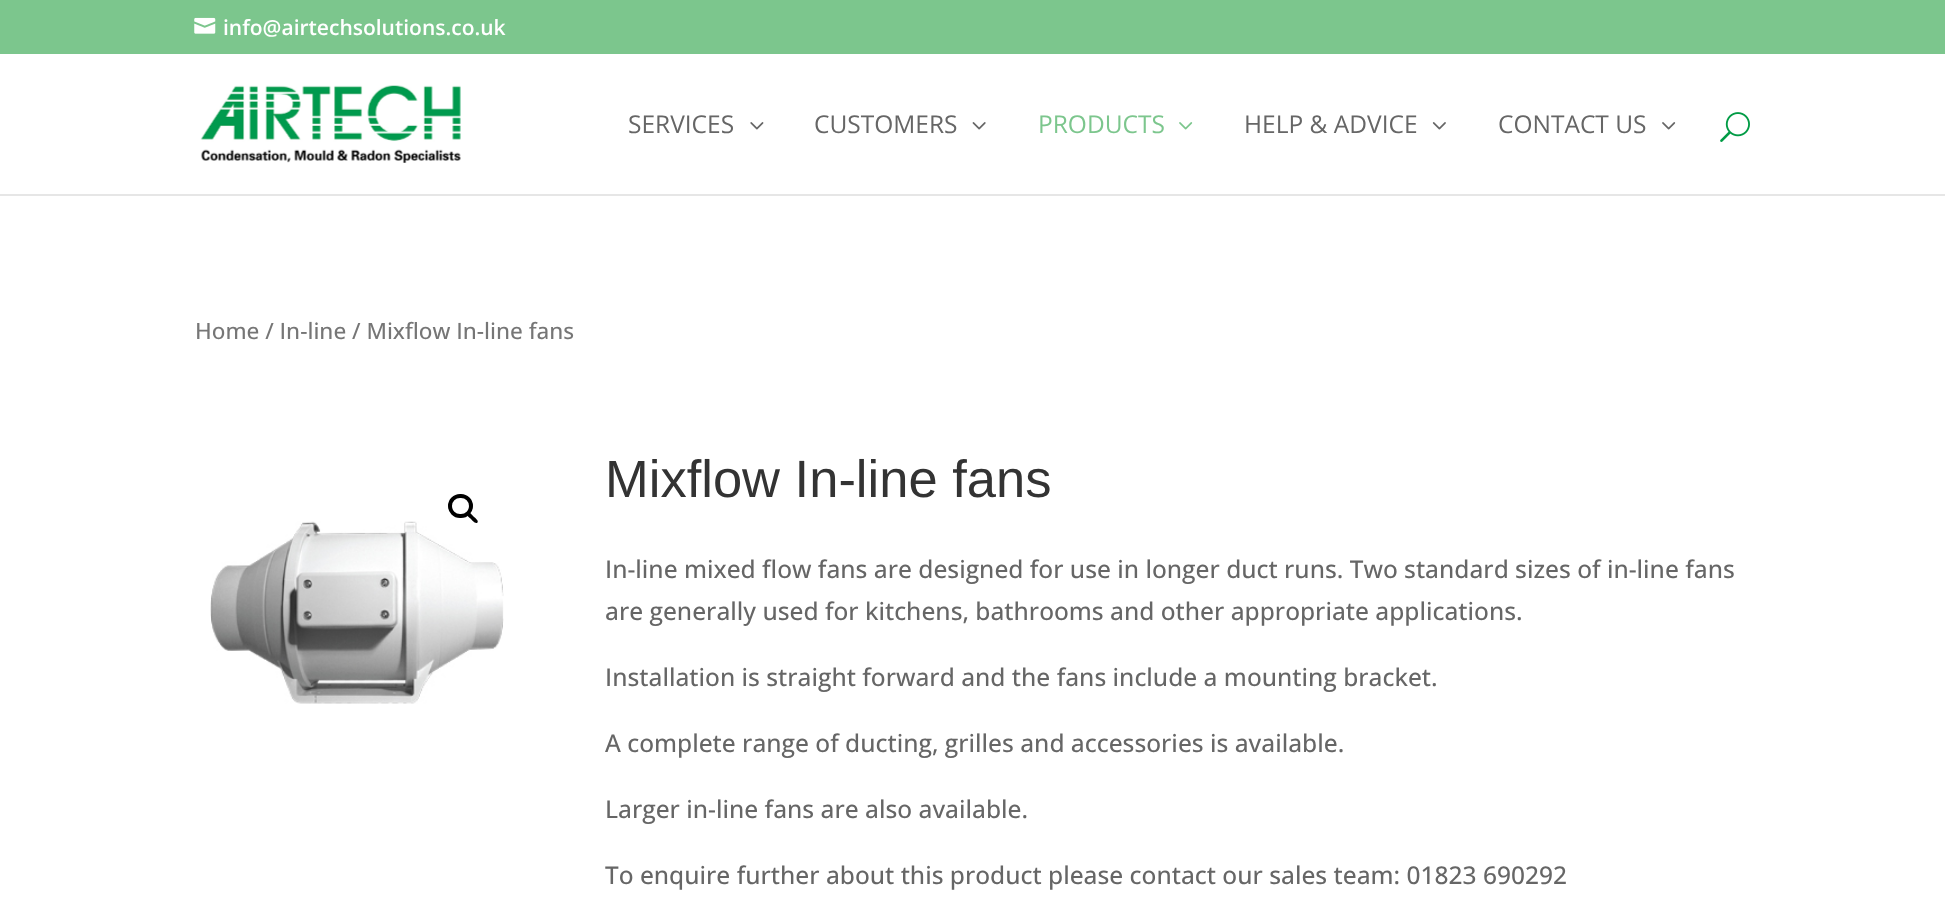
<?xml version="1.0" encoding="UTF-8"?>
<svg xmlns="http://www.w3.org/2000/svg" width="1945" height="916">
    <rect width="100%" height="100%" fill="#FFFFFF"/>
    <rect x="0" y="0" width="1945" height="54" fill="#7CC68D"/>
    <image x="194" y="17" width="22" height="17" href="img_01.png"/>
    <text x="223" y="35" font-family="Open Sans" font-size="21" font-weight="600" fill="#FFFFFF">info@airtechsolutions.co.uk</text>
    <rect x="0" y="194" width="1945" height="2" fill="#E6E6E6"/>
    <image x="200" y="85" width="261" height="78" href="img_02.png"/>
    <text x="628" y="133" font-family="Open Sans" font-size="24.5" fill="#666666">SERVICES</text>
    <image x="750" y="122" width="14" height="8" href="img_03.png"/>
    <text x="814" y="133" font-family="Open Sans" font-size="24.5" fill="#666666">CUSTOMERS</text>
    <image x="972" y="122" width="14" height="8" href="img_04.png"/>
    <text x="1038" y="133" font-family="Open Sans" font-size="24.5" fill="#7CC68D">PRODUCTS</text>
    <image x="1179" y="122" width="14" height="8" href="img_05.png"/>
    <text x="1244" y="133" font-family="Open Sans" font-size="24.5" fill="#666666">HELP &amp; ADVICE</text>
    <image x="1432" y="122" width="14" height="8" href="img_06.png"/>
    <text x="1498" y="133" font-family="Open Sans" font-size="24.5" fill="#666666">CONTACT US</text>
    <image x="1662" y="122" width="14" height="8" href="img_07.png"/>
    <image x="1720" y="112" width="30" height="30" href="img_08.png"/>
    <text x="195" y="339" font-family="Open Sans" font-size="22.5" font-weight="500" fill="#767676">Home / In-line / Mixflow In-line fans</text>
    <rect x="450" y="496" width="21" height="20" rx="10" fill="none" stroke="#000000" stroke-width="4"/>
    <image x="210" y="521" width="294" height="183" href="img_09.png"/>
    <path d="M 467.5 513 C 469.5 511 472.5 515.5 473.5 516.5 C 474.5 517.5 479 520.5 477.5 522.5 C 475.5 524.5 472 520 471 519 C 470 518 465.5 515 467.5 513 Z" fill="#000000"/>
    <text x="605" y="497" font-family="Liberation Sans" font-size="52.5" fill="#333333">Mixflow In-line fans</text>
    <text font-family="Open Sans" font-size="24.5" font-weight="500" fill="#666666">
        <tspan x="605" y="578">In-line mixed flow fans are designed for use in longer duct runs. Two standard sizes of in-line fans</tspan>
        <tspan x="605" y="620">are generally used for kitchens, bathrooms and other appropriate applications.</tspan>
    </text>
    <text x="605" y="686" font-family="Open Sans" font-size="24.5" font-weight="500" fill="#666666">Installation is straight forward and the fans include a mounting bracket.</text>
    <text x="605" y="752" font-family="Open Sans" font-size="24.5" font-weight="500" fill="#666666">A complete range of ducting, grilles and accessories is available.</text>
    <text x="605" y="818" font-family="Open Sans" font-size="24.5" font-weight="500" fill="#666666">Larger in-line fans are also available.</text>
    <text x="605" y="884" font-family="Open Sans" font-size="24.5" font-weight="500" fill="#666666">To enquire further about this product please contact our sales team: 01823 690292</text>
</svg>
